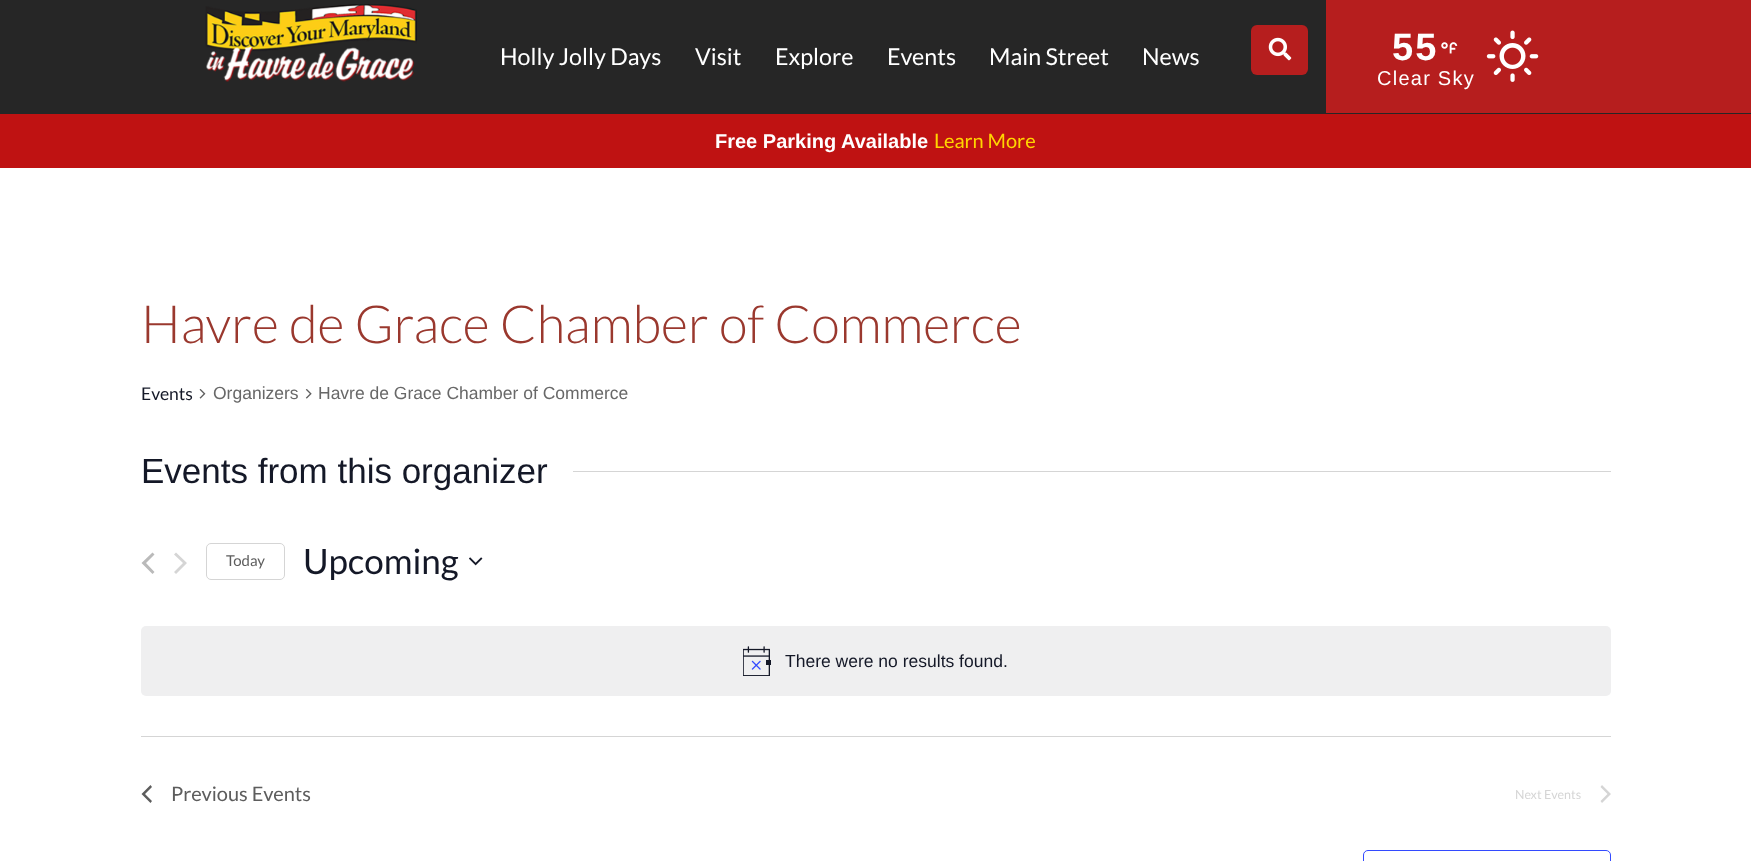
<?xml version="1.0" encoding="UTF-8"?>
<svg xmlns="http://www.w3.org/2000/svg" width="1751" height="861">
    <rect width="100%" height="100%" fill="#FFFFFF"/>
    <rect x="0" y="0" width="1751" height="114" fill="#262626"/>
    <image x="205" y="4" width="212" height="78" href="img_01.png"/>
    <text x="500" y="65" font-family="Lato" font-size="23.25" fill="#FFFFFF">Holly Jolly Days</text>
    <text x="695" y="65" font-family="Lato" font-size="23.25" fill="#FFFFFF">Visit</text>
    <text x="775" y="65" font-family="Lato" font-size="23.25" fill="#FFFFFF">Explore</text>
    <text x="887" y="65" font-family="Lato" font-size="23.25" fill="#FFFFFF">Events</text>
    <text x="989" y="65" font-family="Lato" font-size="23.25" fill="#FFFFFF">Main Street</text>
    <text x="1142" y="65" font-family="Lato" font-size="23.25" fill="#FFFFFF">News</text>
    <rect x="1251" y="25" width="57" height="50" rx="6" fill="#B61E1E"/>
    <image x="1268" y="37" width="24" height="24" href="img_02.png"/>
    <rect x="1326" y="0" width="425" height="113" fill="#B61E1E"/>
    <text x="1392" y="60" font-family="Liberation Sans" font-size="38" font-weight="700" letter-spacing="2" fill="#FFFFFF">55</text>
    <image x="1441" y="42" width="17" height="12" href="img_03.png"/>
    <text x="1377" y="85" font-family="Liberation Sans" font-size="20" letter-spacing="1.25" fill="#FFFFFF">Clear Sky</text>
    <image x="1486" y="30" width="53" height="52" href="img_04.png"/>
    <text x="141" y="343" font-family="Lato" font-size="52.5" font-weight="300" fill="#9A382E">Havre de Grace Chamber of Commerce</text>
    <text x="141" y="400" font-family="Lato" font-size="17.5" fill="#141827">Events</text>
    <image x="199" y="389" width="7" height="10" href="img_05.png"/>
    <text x="213" y="399" font-family="Liberation Sans" font-size="17.5" fill="#686868">Organizers</text>
    <image x="305" y="389" width="7" height="10" href="img_06.png"/>
    <text x="318" y="399" font-family="Liberation Sans" font-size="17.5" fill="#686868">Havre de Grace Chamber of Commerce</text>
    <text x="141" y="483" font-family="Liberation Sans" font-size="35" fill="#141827">Events from this organizer</text>
    <rect x="573" y="471" width="1038" height="1" fill="#D5D5D5"/>
    <path d="M 154.5 572 L 152.5 574 L 141.5 563 L 152.5 552.5 L 154.5 554.5 L 146 563 Z" fill="#BABABA"/>
    <path d="M 174 554.5 L 176 552.5 L 187 563 L 176 574 L 174 572 L 183 563 Z" fill="#D5D5D5"/>
    <rect x="206.5" y="543.5" width="78" height="36" rx="4.5" fill="none" stroke="#D5D5D5"/>
    <text x="226" y="566" font-family="Lato" font-size="15" fill="#5D5D5D">Today</text>
    <text x="303" y="574" font-family="Lato" font-size="35" fill="#141827">Upcoming</text>
    <image x="469" y="557" width="14" height="9" href="img_07.png"/>
    <rect x="141" y="626" width="1470" height="70" rx="5" fill="#EFEFF0"/>
    <rect x="766" y="660" width="5" height="5" fill="#141827"/>
    <image x="743" y="646" width="27" height="30" href="img_08.png"/>
    <text x="785" y="667" font-family="Liberation Sans" font-size="17.5" fill="#141827">There were no results found.</text>
    <rect x="141" y="736" width="1470" height="1" fill="#D5D5D5"/>
    <path d="M 152 801 L 150.5 803 L 141.5 794 L 150.5 785 L 152 787 L 145 794 Z" fill="#5D5D5D"/>
    <text x="171" y="801" font-family="Lato" font-size="20" fill="#5D5D5D">Previous Events</text>
    <text x="1515" y="799" font-family="Lato" font-size="12.5" fill="#D5D5D5">Next Events</text>
    <path d="M 1600.5 787 L 1602 785 L 1611 794 L 1602 803 L 1600.5 801 L 1607.5 794 Z" fill="#D5D5D5"/>
    <rect x="1363.5" y="850.5" width="247" height="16" rx="4.5" fill="none" stroke="#334AFF"/>
    <rect x="0" y="114" width="1751" height="54" fill="#BF1212"/>
    <text x="715" y="148" font-family="Liberation Sans" font-size="20" font-weight="700" fill="#FFFFFF">Free Parking Available</text>
    <text x="934" y="148" font-family="Lato" font-size="20" fill="#FFD500">Learn More</text>
</svg>
